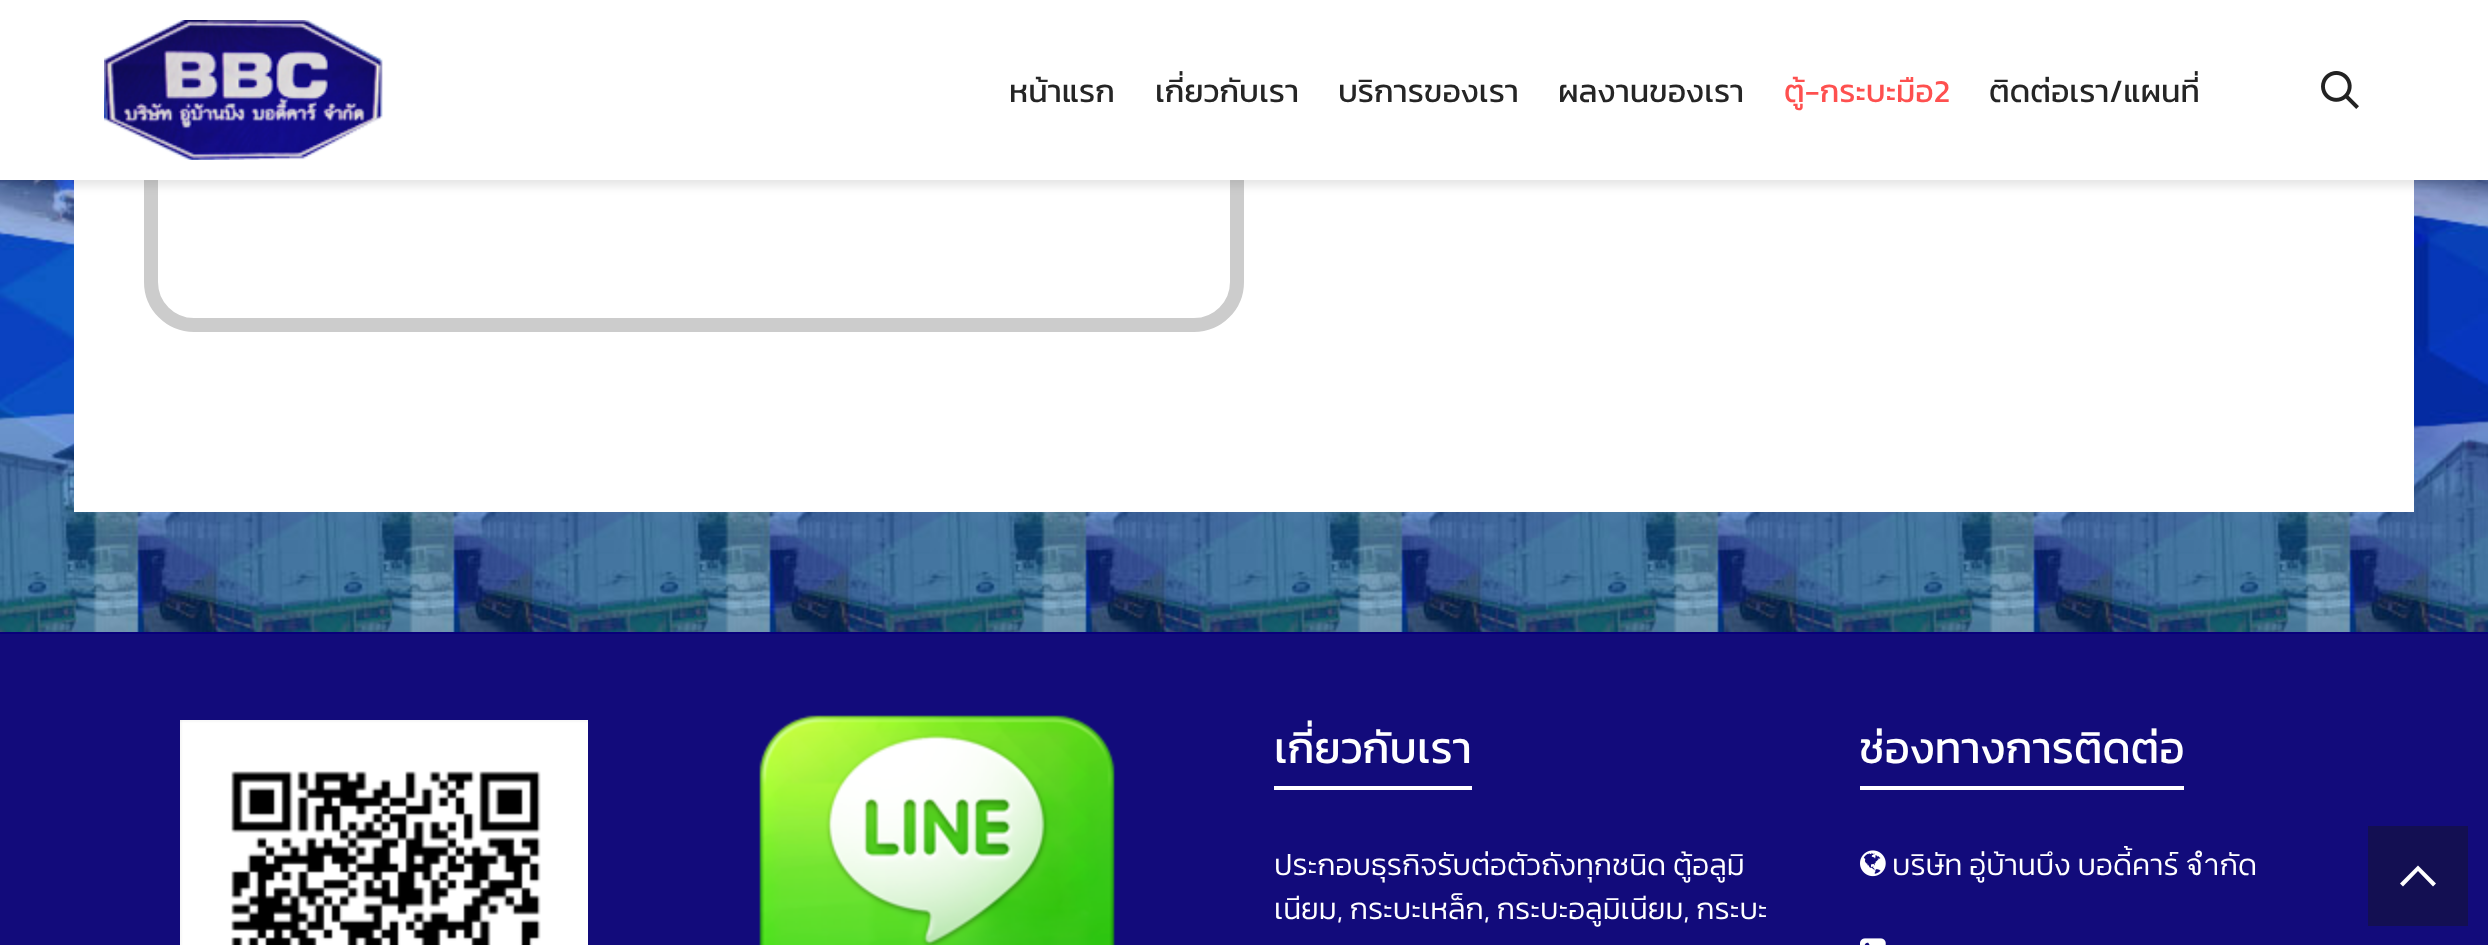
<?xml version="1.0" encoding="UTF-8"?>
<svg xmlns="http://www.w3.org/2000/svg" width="2488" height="945">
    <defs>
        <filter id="blur1" x="-50%" y="-200%" width="200%" height="500%"><feGaussianBlur stdDeviation="5"/></filter>
        <clipPath id="clip1"><rect x="1274" y="714" width="198" height="76"/></clipPath>
        <clipPath id="clip2"><rect x="1860" y="714" width="324" height="76"/></clipPath>
    </defs>
    <rect width="100%" height="100%" fill="#FFFFFF"/>
    <image x="0" y="180" width="2488" height="452" href="img_01.png"/>
    <rect x="74" y="180" width="2340" height="332" fill="#FFFFFF"/>
    <rect x="151" y="-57" width="1086" height="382" rx="43" fill="none" stroke="#CCCCCC" stroke-width="14"/>
    <rect x="0" y="6" width="2488" height="180" fill="#000000" fill-opacity="0.1" filter="url(#blur1)"/>
    <rect x="0" y="0" width="2488" height="180" fill="#FFFFFF"/>
    <image x="104" y="20" width="279" height="140" href="img_02.png"/>
    <text x="1009" y="102" font-family="Kanit" font-size="32" fill="#252525">หน้าแรก</text>
    <text x="1155" y="102" font-family="Kanit" font-size="32" fill="#252525">เกี่ยวกับเรา</text>
    <text x="1338" y="102" font-family="Kanit" font-size="32" fill="#252525">บริการของเรา</text>
    <text x="1558" y="102" font-family="Kanit" font-size="32" fill="#252525">ผลงานของเรา</text>
    <text x="1784" y="102" font-family="Kanit" font-size="32" fill="#FE504F">ตู้-กระบะมือ2</text>
    <text x="1989" y="102" font-family="Kanit" font-size="32" fill="#252525">ติดต่อเรา/แผนที่</text>
    <image x="2321" y="71" width="38" height="38" href="img_03.png"/>
    <rect x="0" y="634" width="2488" height="311" fill="#120B7B"/>
    <rect x="0" y="632" width="2488" height="2" fill="#08007A"/>
    <image x="180" y="720" width="408" height="225" href="img_04.png"/>
    <image x="759" y="715" width="356" height="230" href="img_05.png"/>
    <rect x="1274" y="786" width="198" height="4" fill="#FFFFFF"/>
    <g clip-path="url(#clip1)">
        <text x="1274" y="763" font-family="Kanit" font-size="44" fill="#FFFFFF">เกี่ยวกับเรา</text>
    </g>
    <text font-family="Kanit" font-size="30" font-weight="300" fill="#FFFFFF">
        <tspan x="1274" y="875">ประกอบธุรกิจรับต่อตัวถังทุกชนิด ตู้อลูมิ</tspan>
        <tspan x="1274" y="919">เนียม, กระบะเหล็ก, กระบะอลูมิเนียม, กระบะ</tspan>
    </text>
    <rect x="1860" y="786" width="324" height="4" fill="#FFFFFF"/>
    <g clip-path="url(#clip2)">
        <text x="1859" y="763" font-family="Kanit" font-size="44" fill="#FFFFFF">ช่องทางการติดต่อ</text>
    </g>
    <image x="1860" y="850" width="26" height="27" href="img_06.png"/>
    <text x="1892" y="875" font-family="Kanit" font-size="30" font-weight="300" fill="#FFFFFF">บริษัท อู่บ้านบึง บอดี้คาร์ จำกัด</text>
    <image x="1860" y="938" width="26" height="7" href="img_07.png"/>
    <rect x="2368" y="826" width="100" height="100" fill="#130F52"/>
    <path d="M 2400 883.5 L 2403 886.5 L 2418 871 L 2433 886.5 L 2436 883.5 L 2418 865.5 Z" fill="#FFFFFF"/>
</svg>
